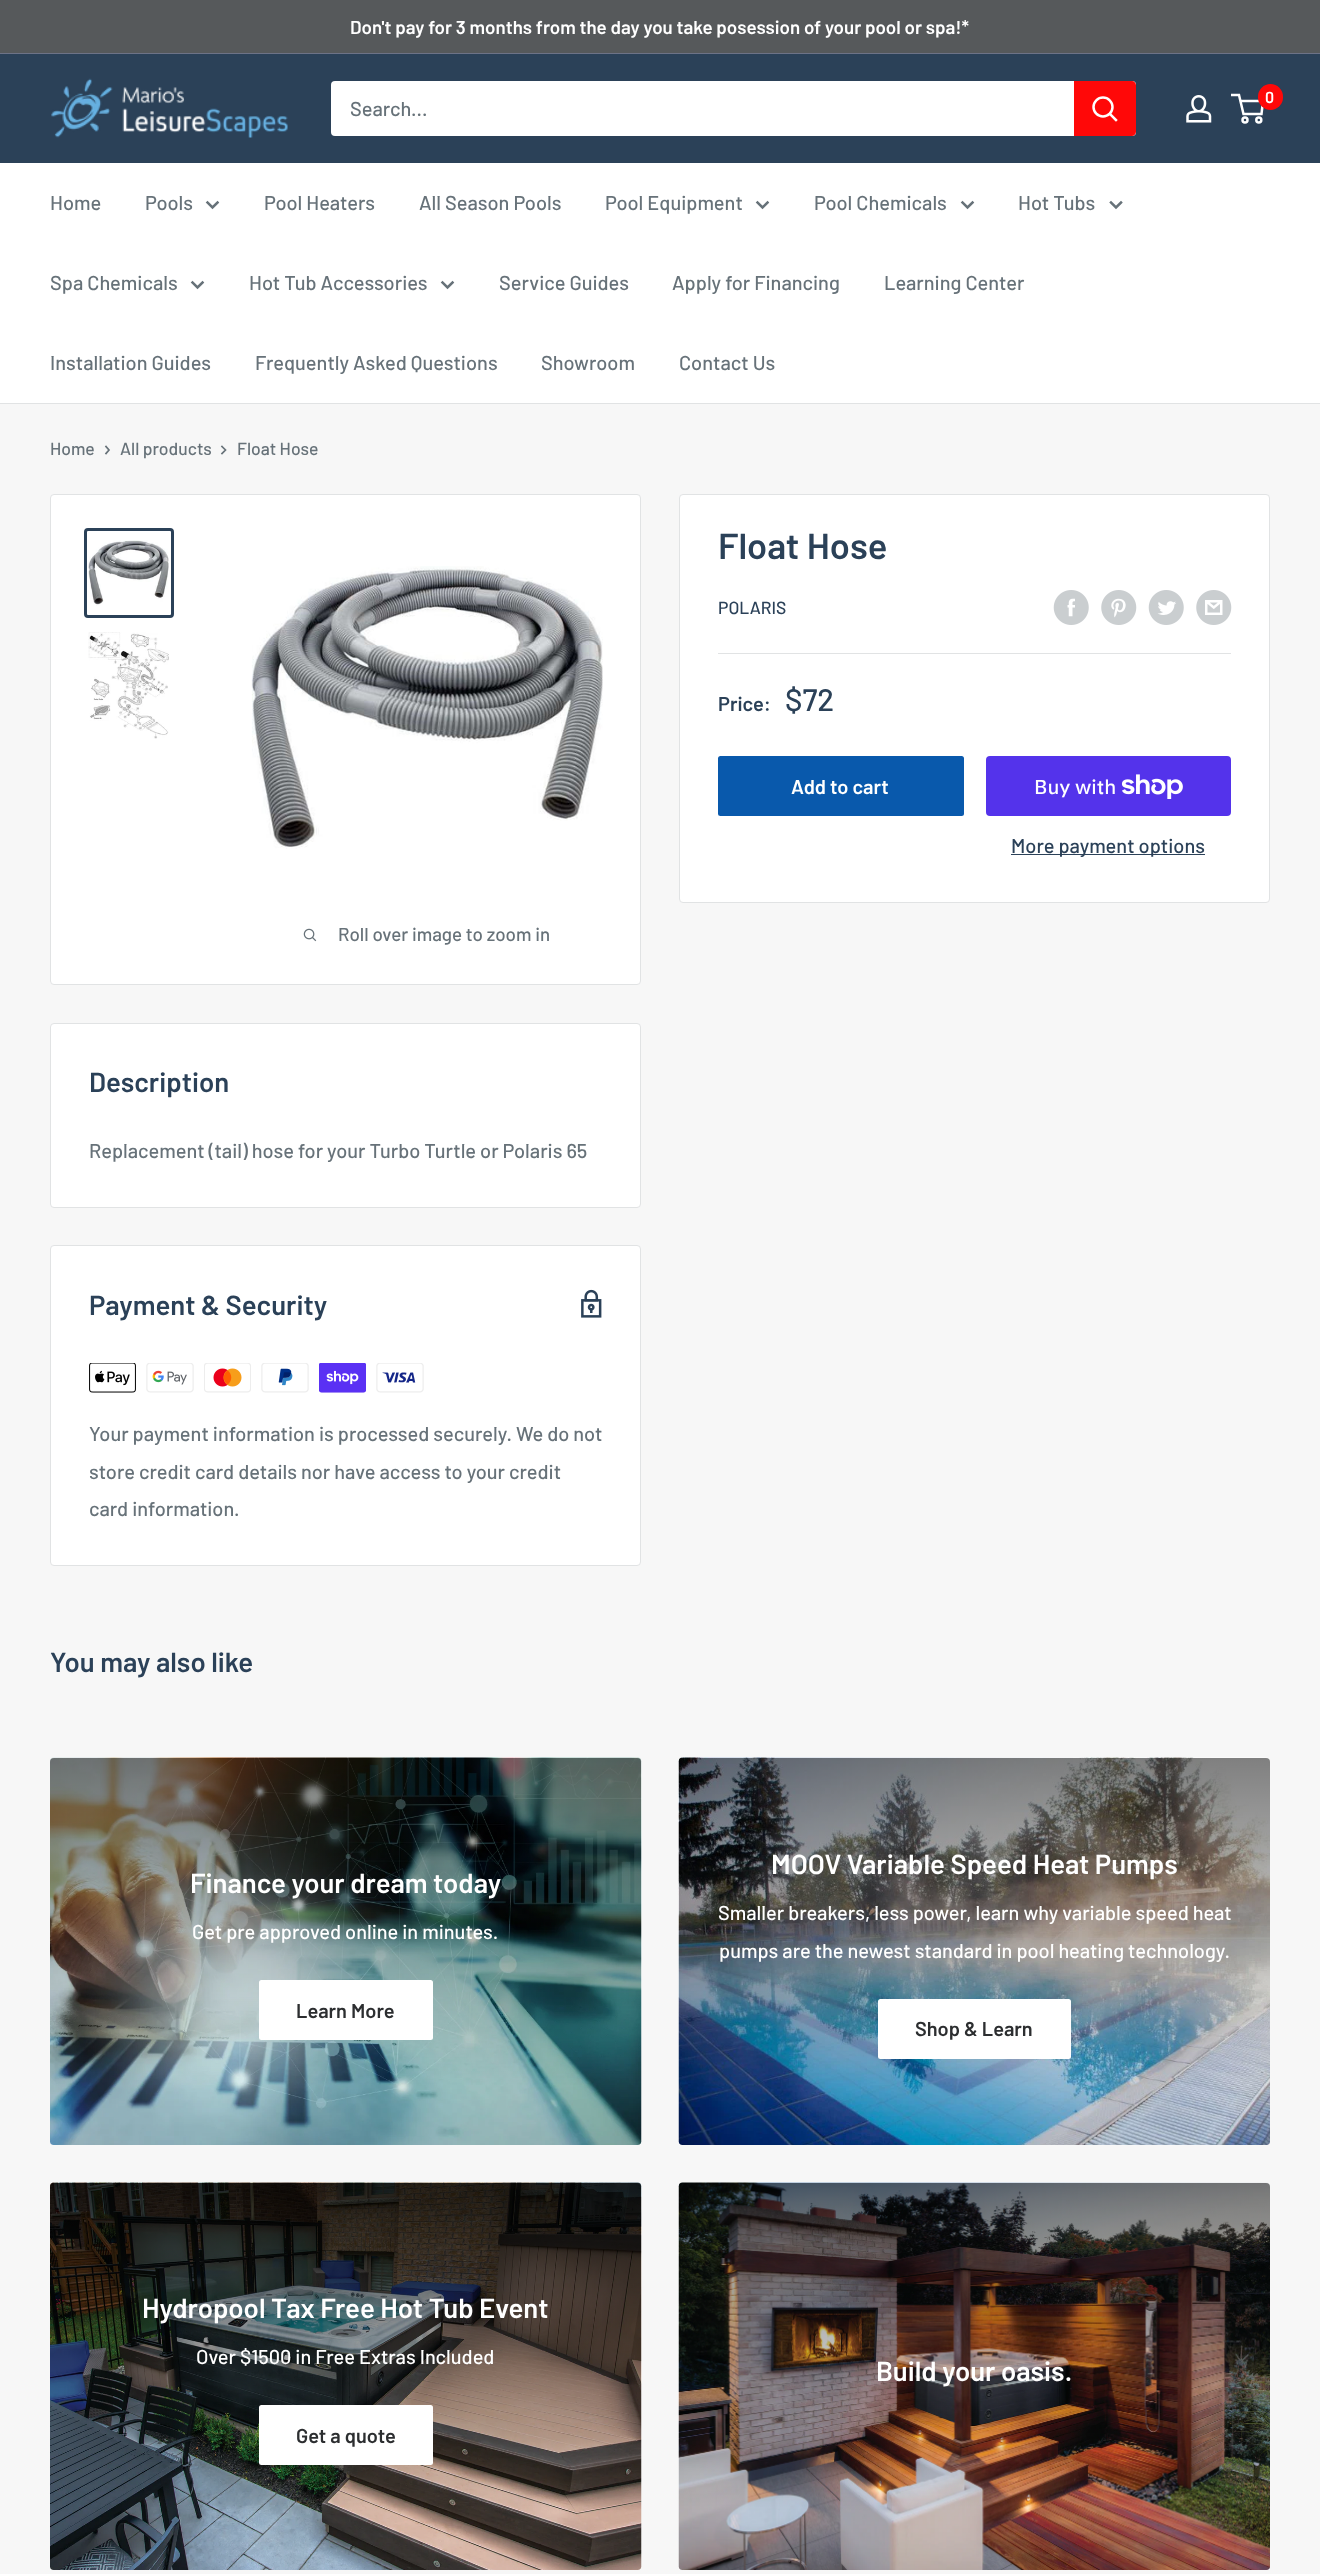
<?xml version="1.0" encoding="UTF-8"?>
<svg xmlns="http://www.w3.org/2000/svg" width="1320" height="2574">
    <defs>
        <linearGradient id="g1" gradientUnits="userSpaceOnUse" x1="346" y1="2145" x2="346" y2="1758"><stop offset="0.15" stop-color="#000000" stop-opacity="0"/><stop offset="1" stop-color="#000000" stop-opacity="0.5"/></linearGradient>
        <linearGradient id="g2" gradientUnits="userSpaceOnUse" x1="974" y1="2145" x2="974" y2="1758"><stop offset="0.15" stop-color="#000000" stop-opacity="0"/><stop offset="1" stop-color="#000000" stop-opacity="0.5"/></linearGradient>
        <linearGradient id="g3" gradientUnits="userSpaceOnUse" x1="346" y1="2570" x2="346" y2="2183"><stop offset="0.15" stop-color="#000000" stop-opacity="0"/><stop offset="1" stop-color="#000000" stop-opacity="0.78"/></linearGradient>
        <linearGradient id="g4" gradientUnits="userSpaceOnUse" x1="974" y1="2570" x2="974" y2="2183"><stop offset="0.15" stop-color="#000000" stop-opacity="0"/><stop offset="1" stop-color="#000000" stop-opacity="0.51"/></linearGradient>
    </defs>
    <rect width="100%" height="100%" fill="#F7F7F7"/>
    <rect x="0" y="0" width="1320" height="53" fill="#56595B"/>
    <rect x="0" y="53" width="1320" height="1" fill="#6D7387"/>
    <text x="350" y="34" font-family="Barlow" font-size="18.75" font-weight="600" fill="#FFFFFF">Don't pay for 3 months from the day you take posession of your pool or spa!*</text>
    <rect x="0" y="54" width="1320" height="109" fill="#2B4158"/>
    <image x="51" y="78" width="237" height="60" href="img_01.png"/>
    <image x="1186" y="95" width="26" height="28" href="img_02.png"/>
    <circle cx="1245" cy="120" r="2.5" fill="none" stroke="#FFFFFF" stroke-width="2.5"/>
    <circle cx="1258.8" cy="120" r="2.5" fill="none" stroke="#FFFFFF" stroke-width="2.5"/>
    <path d="M 1240.5 101 H 1263 L 1261.5 114 H 1243.5 L 1239 95 H 1231" fill="none" stroke="#FFFFFF" stroke-width="2.5"/>
    <rect x="1258" y="84" width="25" height="26" rx="12.5" fill="#FF0808"/>
    <text x="1265" y="103" font-family="Barlow" font-size="16" font-weight="600" fill="#FFFFFF">0</text>
    <rect x="331" y="81" width="805" height="55" rx="4" fill="#FFFFFF"/>
    <text x="350" y="116" font-family="Barlow" font-size="20" font-weight="500" fill="#677279">Search...</text>
    <path d="M 1074 81 H 1132 C 1134 81 1136 83 1136 85 V 132 C 1136 134 1134 136 1132 136 H 1074 Z" fill="#FF0808"/>
    <path d="M 1116 120 L 1110 114" fill="none" stroke="#FFFFFF" stroke-width="2.5" stroke-linecap="square"/>
    <circle cx="1103" cy="107" r="9.5" fill="none" stroke="#FFFFFF" stroke-width="2.5"/>
    <rect x="0" y="163" width="1320" height="240" fill="#FFFFFF"/>
    <rect x="0" y="403" width="1320" height="1" fill="#E1E3E4"/>
    <text x="50" y="210" font-family="Barlow" font-size="20" font-weight="500" fill="#677279">Home</text>
    <text x="145" y="210" font-family="Barlow" font-size="20" font-weight="500" fill="#677279">Pools</text>
    <path d="M 217.5 202.5 L 212.5 207.5 L 207.5 202.5" fill="none" stroke="#677279" stroke-width="2.5" stroke-linecap="square"/>
    <text x="264" y="210" font-family="Barlow" font-size="20" font-weight="500" fill="#677279">Pool Heaters</text>
    <text x="419" y="210" font-family="Barlow" font-size="20" font-weight="500" fill="#677279">All Season Pools</text>
    <text x="605" y="210" font-family="Barlow" font-size="20" font-weight="500" fill="#677279">Pool Equipment</text>
    <path d="M 767.5 202.5 L 762.5 207.5 L 757.5 202.5" fill="none" stroke="#677279" stroke-width="2.5" stroke-linecap="square"/>
    <text x="814" y="210" font-family="Barlow" font-size="20" font-weight="500" fill="#677279">Pool Chemicals</text>
    <path d="M 972.5 202.5 L 967.5 207.5 L 962.5 202.5" fill="none" stroke="#677279" stroke-width="2.5" stroke-linecap="square"/>
    <text x="1018" y="210" font-family="Barlow" font-size="20" font-weight="500" fill="#677279">Hot Tubs</text>
    <path d="M 1121 202.5 L 1116 207.5 L 1111 202.5" fill="none" stroke="#677279" stroke-width="2.5" stroke-linecap="square"/>
    <text x="50" y="290" font-family="Barlow" font-size="20" font-weight="500" fill="#677279">Spa Chemicals</text>
    <path d="M 202.5 282.5 L 197.5 287.5 L 192.5 282.5" fill="none" stroke="#677279" stroke-width="2.5" stroke-linecap="square"/>
    <text x="249" y="290" font-family="Barlow" font-size="20" font-weight="500" fill="#677279">Hot Tub Accessories</text>
    <path d="M 452.5 282.5 L 447.5 287.5 L 442.5 282.5" fill="none" stroke="#677279" stroke-width="2.5" stroke-linecap="square"/>
    <text x="499" y="290" font-family="Barlow" font-size="20" font-weight="500" fill="#677279">Service Guides</text>
    <text x="672" y="290" font-family="Barlow" font-size="20" font-weight="500" fill="#677279">Apply for Financing</text>
    <text x="884" y="290" font-family="Barlow" font-size="20" font-weight="500" fill="#677279">Learning Center</text>
    <text x="50" y="370" font-family="Barlow" font-size="20" font-weight="500" fill="#677279">Installation Guides</text>
    <text x="255" y="370" font-family="Barlow" font-size="20" font-weight="500" fill="#677279">Frequently Asked Questions</text>
    <text x="541" y="370" font-family="Barlow" font-size="20" font-weight="500" fill="#677279">Showroom</text>
    <text x="679" y="370" font-family="Barlow" font-size="20" font-weight="500" fill="#677279">Contact Us</text>
    <text x="50" y="455" font-family="Barlow" font-size="17.5" font-weight="500" fill="#677279">Home</text>
    <path d="M 106 446.5 L 109 450 L 106 453.5" fill="none" stroke="#677279" stroke-width="1.7" stroke-linecap="square"/>
    <text x="120" y="455" font-family="Barlow" font-size="17.5" font-weight="500" fill="#677279">All products</text>
    <path d="M 222 446.5 L 225.5 450 L 222 453.5" fill="none" stroke="#677279" stroke-width="1.7" stroke-linecap="square"/>
    <text x="237" y="455" font-family="Barlow" font-size="17.5" font-weight="500" fill="#677279">Float Hose</text>
    <rect x="679.5" y="494.5" width="590" height="408" rx="3.5" fill="#FFFFFF" stroke="#E1E3E4"/>
    <text x="718" y="559" font-family="Barlow" font-size="36.25" font-weight="600" fill="#2B4158">Float Hose</text>
    <text x="718" y="614" font-family="Barlow" font-size="17.5" font-weight="500" fill="#2B4158">POLARIS</text>
    <image x="1053" y="590" width="36" height="35" href="img_03.png"/>
    <image x="1101" y="590" width="36" height="35" href="img_04.png"/>
    <image x="1148" y="590" width="36" height="35" href="img_05.png"/>
    <image x="1196" y="590" width="36" height="35" href="img_06.png"/>
    <rect x="718" y="653" width="513" height="1" fill="#E1E3E4"/>
    <text x="718" y="711" font-family="Barlow" font-size="20" font-weight="600" fill="#2B4158">Price:</text>
    <text x="785" y="711" font-family="Barlow" font-size="31" font-weight="500" fill="#2B4158">$72</text>
    <rect x="718" y="756" width="246" height="60" rx="2.5" fill="#0959AC"/>
    <text x="791" y="794" font-family="Barlow" font-size="20" font-weight="600" fill="#FFFFFF">Add to cart</text>
    <rect x="986" y="756" width="245" height="60" rx="4" fill="#5433EB"/>
    <text x="1034" y="794" font-family="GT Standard" font-size="20" font-weight="500" fill="#FFFFFF">Buy with</text>
    <image x="1121" y="774" width="62" height="25" href="img_07.png"/>
    <rect x="1011" y="854" width="194" height="1" fill="#2B4158"/>
    <text x="1011" y="853" font-family="Barlow" font-size="20" font-weight="500" fill="#2B4158">More payment options</text>
    <rect x="50.5" y="494.5" width="590" height="490" rx="3.5" fill="#FFFFFF" stroke="#E1E3E4"/>
    <rect x="85.5" y="529.5" width="87" height="87" rx="2.5" fill="none" stroke="#2B4158" stroke-width="3"/>
    <image x="88" y="540" width="81" height="66" href="img_08.png"/>
    <image x="88" y="632" width="81" height="107" href="img_09.png"/>
    <image x="251" y="566" width="352" height="283" href="img_10.png"/>
    <image x="303" y="928" width="14" height="14" href="img_11.png"/>
    <text x="338" y="941" font-family="Barlow" font-size="18.75" font-weight="500" fill="#677279">Roll over image to zoom in</text>
    <rect x="50.5" y="1023.5" width="590" height="184" rx="3.5" fill="#FFFFFF" stroke="#E1E3E4"/>
    <text x="89" y="1092" font-family="Barlow" font-size="27.5" font-weight="600" fill="#2B4158">Description</text>
    <text x="89" y="1158" font-family="Barlow" font-size="20" font-weight="500" fill="#677279">Replacement (tail) hose for your Turbo Turtle or Polaris 65</text>
    <rect x="50.5" y="1245.5" width="590" height="320" rx="3.5" fill="#FFFFFF" stroke="#E1E3E4"/>
    <text x="89" y="1315" font-family="Barlow" font-size="27.5" font-weight="600" fill="#2B4158">Payment &amp; Security</text>
    <image x="581" y="1289" width="21" height="29" href="img_12.png"/>
    <image x="89" y="1363" width="47" height="30" href="img_13.png"/>
    <image x="146" y="1363" width="48" height="30" href="img_14.png"/>
    <image x="204" y="1363" width="47" height="30" href="img_15.png"/>
    <image x="261" y="1363" width="48" height="30" href="img_16.png"/>
    <image x="319" y="1363" width="47" height="30" href="img_17.png"/>
    <image x="376" y="1363" width="48" height="30" href="img_18.png"/>
    <text font-family="Barlow" font-size="20" font-weight="500" fill="#677279">
        <tspan x="89" y="1441">Your payment information is processed securely. We do not</tspan>
        <tspan x="89" y="1479">store credit card details nor have access to your credit</tspan>
        <tspan x="89" y="1516">card information.</tspan>
    </text>
    <text x="50" y="1672" font-family="Barlow" font-size="27.5" font-weight="600" fill="#2B4158">You may also like</text>
    <image x="50" y="1757" width="592" height="388" href="img_19.png"/>
    <rect x="50" y="1758" width="591" height="387" rx="4" fill="url(#g1)"/>
    <text x="190" y="1893" font-family="Barlow" font-size="27.5" font-weight="600" fill="#FFFFFF">Finance your dream today</text>
    <text x="192" y="1939" font-family="Barlow" font-size="20" font-weight="500" fill="#FFFFFF">Get pre approved online in minutes.</text>
    <rect x="259" y="1980" width="174" height="60" rx="2.5" fill="#FFFFFF"/>
    <text x="296" y="2018" font-family="Barlow" font-size="20" font-weight="600" fill="#2C2E30">Learn More</text>
    <image x="678" y="1757" width="592" height="388" href="img_20.png"/>
    <rect x="679" y="1758" width="591" height="387" rx="4" fill="url(#g2)"/>
    <text x="771" y="1874" font-family="Barlow" font-size="27.5" font-weight="600" fill="#FFFFFF">MOOV Variable Speed Heat Pumps</text>
    <text x="718" y="1920" font-family="Barlow" font-size="20" font-weight="500" fill="#FFFFFF">Smaller breakers, less power, learn why variable speed heat</text>
    <text x="719" y="1958" font-family="Barlow" font-size="20" font-weight="500" fill="#FFFFFF">pumps are the newest standard in pool heating technology.</text>
    <rect x="878" y="1999" width="193" height="60" rx="2.5" fill="#FFFFFF"/>
    <text x="915" y="2036" font-family="Barlow" font-size="20" font-weight="600" fill="#2C2E30">Shop &amp; Learn</text>
    <image x="50" y="2182" width="592" height="388" href="img_21.png"/>
    <rect x="50" y="2183" width="591" height="387" rx="4" fill="url(#g3)"/>
    <text x="142" y="2318" font-family="Barlow" font-size="27.5" font-weight="600" fill="#FFFFFF">Hydropool Tax Free Hot Tub Event</text>
    <text x="196" y="2364" font-family="Barlow" font-size="20" font-weight="500" fill="#FFFFFF">Over $1500 in Free Extras Included</text>
    <rect x="259" y="2405" width="174" height="60" rx="2.5" fill="#FFFFFF"/>
    <text x="296" y="2443" font-family="Barlow" font-size="20" font-weight="600" fill="#2C2E30">Get a quote</text>
    <image x="678" y="2182" width="592" height="388" href="img_22.png"/>
    <rect x="679" y="2183" width="591" height="387" rx="4" fill="url(#g4)"/>
    <text x="876" y="2381" font-family="Barlow" font-size="27.5" font-weight="600" fill="#FFFFFF">Build your oasis.</text>
</svg>
